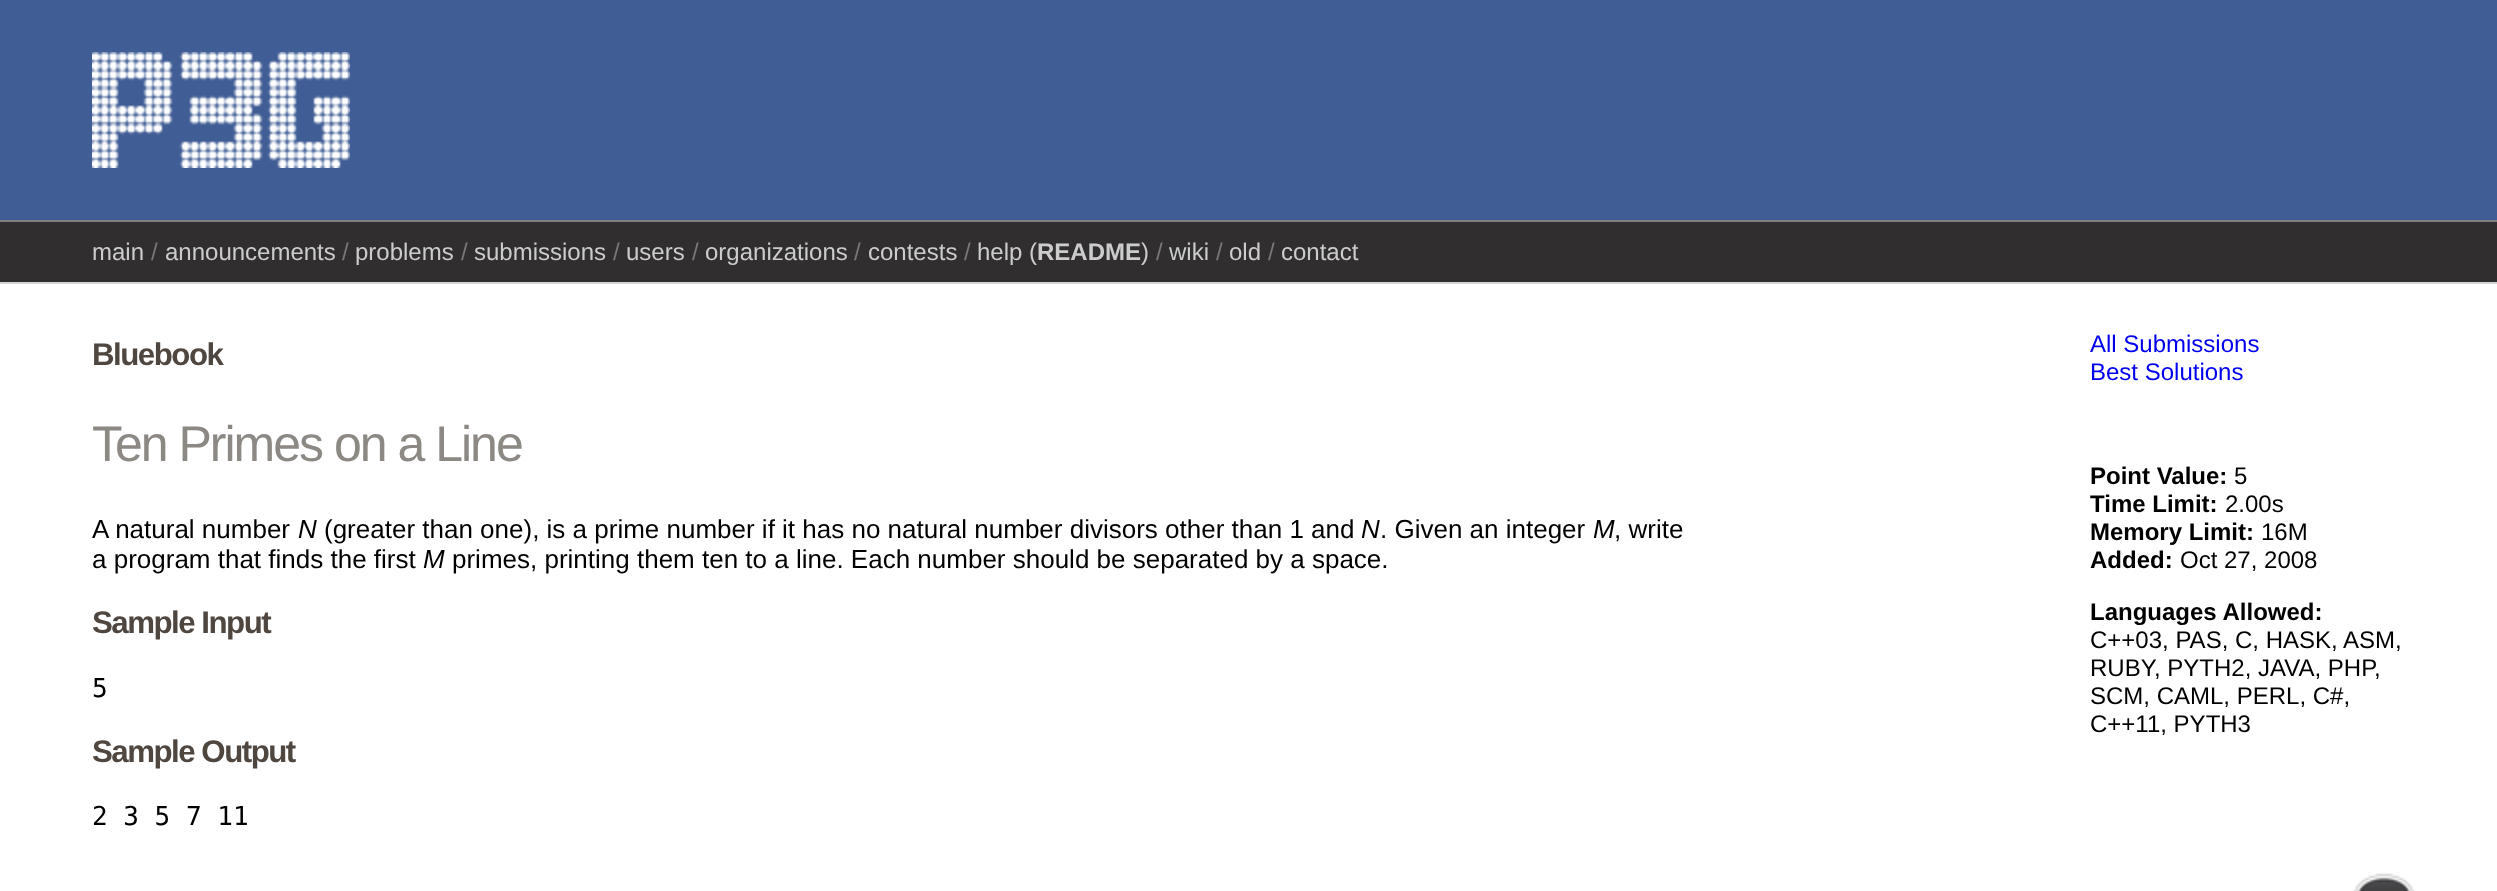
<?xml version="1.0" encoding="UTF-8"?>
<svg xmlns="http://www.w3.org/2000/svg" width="2497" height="891">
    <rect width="100%" height="100%" fill="#FFFFFF"/>
    <rect x="0" y="0" width="2497" height="220" fill="#415D95"/>
    <rect x="0" y="222" width="2497" height="60" fill="#302E2F"/>
    <rect x="0" y="220" width="2497" height="2" fill="#808080"/>
    <rect x="0" y="282" width="2497" height="2" fill="#D4D4D4"/>
    <image x="92" y="52" width="258" height="116" href="img_01.png"/>
    <text x="92" y="260" font-family="Liberation Sans" font-size="24" fill="#CCCCCC">main</text>
    <text x="151" y="260" font-family="Liberation Sans" font-size="24" fill="#777777">/</text>
    <text x="165" y="260" font-family="Liberation Sans" font-size="24" fill="#CCCCCC">announcements</text>
    <text x="342" y="260" font-family="Liberation Sans" font-size="24" fill="#777777">/</text>
    <text x="355" y="260" font-family="Liberation Sans" font-size="24" fill="#CCCCCC">problems</text>
    <text x="461" y="260" font-family="Liberation Sans" font-size="24" fill="#777777">/</text>
    <text x="474" y="260" font-family="Liberation Sans" font-size="24" fill="#CCCCCC">submissions</text>
    <text x="613" y="260" font-family="Liberation Sans" font-size="24" fill="#777777">/</text>
    <text x="626" y="260" font-family="Liberation Sans" font-size="24" fill="#CCCCCC">users</text>
    <text x="692" y="260" font-family="Liberation Sans" font-size="24" fill="#777777">/</text>
    <text x="705" y="260" font-family="Liberation Sans" font-size="24" fill="#CCCCCC">organizations</text>
    <text x="854" y="260" font-family="Liberation Sans" font-size="24" fill="#777777">/</text>
    <text x="868" y="260" font-family="Liberation Sans" font-size="24" fill="#CCCCCC">contests</text>
    <text x="964" y="260" font-family="Liberation Sans" font-size="24" fill="#777777">/</text>
    <text x="977" y="260" font-family="Liberation Sans" font-size="24" fill="#CCCCCC">help (</text>
    <text x="1037" y="260" font-family="Liberation Sans" font-size="24" font-weight="700" fill="#CCCCCC">README</text>
    <text x="1141" y="260" font-family="Liberation Sans" font-size="24" fill="#CCCCCC">)</text>
    <text x="1156" y="260" font-family="Liberation Sans" font-size="24" fill="#777777">/</text>
    <text x="1169" y="260" font-family="Liberation Sans" font-size="24" fill="#CCCCCC">wiki</text>
    <text x="1216" y="260" font-family="Liberation Sans" font-size="24" fill="#777777">/</text>
    <text x="1229" y="260" font-family="Liberation Sans" font-size="24" fill="#CCCCCC">old</text>
    <text x="1268" y="260" font-family="Liberation Sans" font-size="24" fill="#777777">/</text>
    <text x="1281" y="260" font-family="Liberation Sans" font-size="24" fill="#CCCCCC">contact</text>
    <text x="92" y="365" font-family="Liberation Sans" font-size="31.25" font-weight="700" letter-spacing="-1.5" fill="#4E463F">Bluebook</text>
    <text x="92" y="461" font-family="Liberation Sans" font-size="50" letter-spacing="-2" fill="#8C8984">Ten Primes on a Line</text>
    <text x="92" y="538" font-family="Liberation Sans" font-size="26" fill="#000000">A natural number</text>
    <text x="298" y="538" font-family="Liberation Sans" font-size="26" font-style="italic" fill="#000000">N</text>
    <text x="324" y="538" font-family="Liberation Sans" font-size="26" fill="#000000">(greater than one), is a prime number if it has no natural number divisors other than 1 and</text>
    <text x="1361" y="538" font-family="Liberation Sans" font-size="26" font-style="italic" fill="#000000">N</text>
    <text x="1380" y="538" font-family="Liberation Sans" font-size="26" fill="#000000">. Given an integer</text>
    <text x="1593" y="538" font-family="Liberation Sans" font-size="26" font-style="italic" fill="#000000">M</text>
    <text x="1614" y="538" font-family="Liberation Sans" font-size="26" fill="#000000">, write</text>
    <text x="92" y="568" font-family="Liberation Sans" font-size="26" fill="#000000">a program that finds the first</text>
    <text x="423" y="568" font-family="Liberation Sans" font-size="26" font-style="italic" fill="#000000">M</text>
    <text x="452" y="568" font-family="Liberation Sans" font-size="26" fill="#000000">primes, printing them ten to a line. Each number should be separated by a space.</text>
    <text x="92" y="633" font-family="Liberation Sans" font-size="31.25" font-weight="700" letter-spacing="-1.5" fill="#4E463F">Sample Input</text>
    <text x="92" y="697" font-family="DejaVu Sans Mono" font-size="26" fill="#000000">5</text>
    <text x="92" y="762" font-family="Liberation Sans" font-size="31.25" font-weight="700" letter-spacing="-1.5" fill="#4E463F">Sample Output</text>
    <text x="92" y="825" font-family="DejaVu Sans Mono" font-size="26" fill="#000000">2 3 5 7 11</text>
    <text font-family="Liberation Sans" font-size="24" fill="#0000EE">
        <tspan x="2090" y="352">All Submissions</tspan>
        <tspan x="2090" y="380">Best Solutions</tspan>
    </text>
    <text x="2090" y="484" font-family="Liberation Sans" font-size="24" font-weight="700" fill="#000000">Point Value:</text>
    <text x="2234" y="484" font-family="Liberation Sans" font-size="24" fill="#000000">5</text>
    <text x="2090" y="512" font-family="Liberation Sans" font-size="24" font-weight="700" fill="#000000">Time Limit:</text>
    <text x="2225" y="512" font-family="Liberation Sans" font-size="24" fill="#000000">2.00s</text>
    <text x="2090" y="540" font-family="Liberation Sans" font-size="24" font-weight="700" fill="#000000">Memory Limit:</text>
    <text x="2261" y="540" font-family="Liberation Sans" font-size="24" fill="#000000">16M</text>
    <text x="2090" y="568" font-family="Liberation Sans" font-size="24" font-weight="700" fill="#000000">Added:</text>
    <text x="2180" y="568" font-family="Liberation Sans" font-size="24" fill="#000000">Oct 27, 2008</text>
    <text x="2090" y="620" font-family="Liberation Sans" font-size="24" font-weight="700" fill="#000000">Languages Allowed:</text>
    <text x="2090" y="648" font-family="Liberation Sans" font-size="24" fill="#000000">C++03, PAS, C, HASK,</text>
    <text x="2343" y="648" font-family="Liberation Sans" font-size="24" fill="#000000">ASM,</text>
    <text x="2090" y="676" font-family="Liberation Sans" font-size="24" fill="#000000">RUBY</text>
    <text x="2154" y="676" font-family="Liberation Sans" font-size="24" fill="#000000">, PYTH2, JAVA, PHP</text>
    <text x="2374" y="676" font-family="Liberation Sans" font-size="24" fill="#000000">,</text>
    <text font-family="Liberation Sans" font-size="24" fill="#000000">
        <tspan x="2090" y="704">SCM, CAML, PERL, C#,</tspan>
        <tspan x="2090" y="732">C++11, PYTH3</tspan>
    </text>
    <image x="2353" y="873" width="62" height="18" href="img_02.png"/>
</svg>
